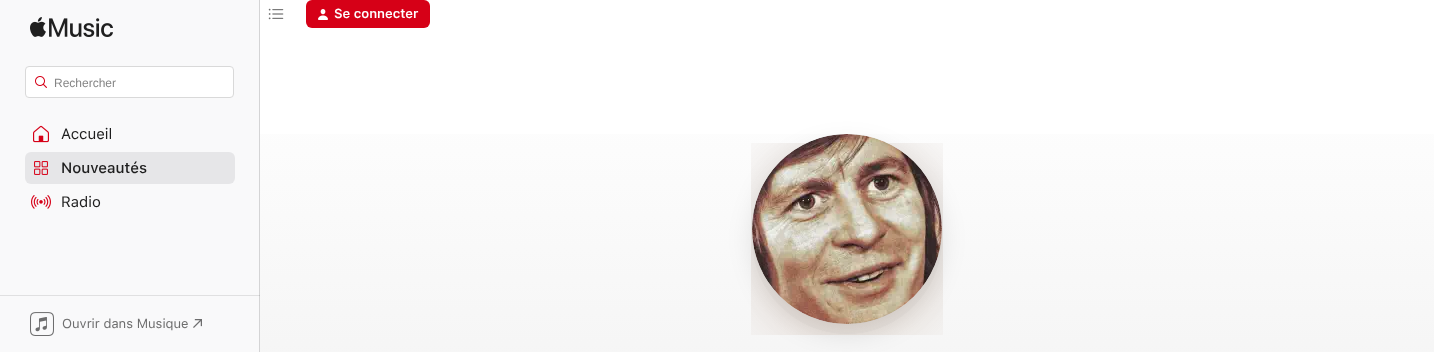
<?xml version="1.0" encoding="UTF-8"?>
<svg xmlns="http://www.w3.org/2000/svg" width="1434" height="352">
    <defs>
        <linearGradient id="g1" gradientUnits="userSpaceOnUse" x1="847" y1="54" x2="847" y2="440"><stop offset="0" stop-color="#FFFFFF"/><stop offset="1" stop-color="#F3F3F3"/></linearGradient>
        <filter id="blur1" x="-50%" y="-200%" width="200%" height="500%"><feGaussianBlur stdDeviation="12.5"/></filter>
    </defs>
    <rect width="100%" height="100%" fill="#FFFFFF"/>
    <image x="268" y="8" width="16" height="12" href="img_01.png"/>
    <rect x="306" y="0" width="124" height="28" rx="6" fill="#D60017"/>
    <image x="318" y="9" width="10" height="11" href="img_02.png"/>
    <text x="334" y="18" font-family="SF" font-size="13" font-weight="600" fill="#FFFFFF">Se connecter</text>
    <rect x="0" y="0" width="259" height="352" fill="#F9F9FA"/>
    <rect x="0" y="295" width="260" height="1" fill="#E0E0E1"/>
    <rect x="259" y="0" width="1" height="352" fill="#D4D4D5"/>
    <rect x="259" y="295" width="1" height="1" fill="#BFBFC0"/>
    <image x="30" y="17" width="83" height="20" href="img_03.png"/>
    <rect x="25.5" y="66.5" width="208" height="31" rx="3.5" fill="#FFFFFF" stroke="#D9D9D9"/>
    <image x="35" y="76" width="12" height="12" href="img_04.png"/>
    <text x="54" y="87" font-family="Liberation Sans" font-size="12" fill="#858585">Rechercher</text>
    <image x="33" y="125" width="16" height="18" href="img_05.png"/>
    <text x="61" y="139" font-family="SF" font-size="15" fill="#1E1E1E">Accueil</text>
    <rect x="25" y="152" width="210" height="32" rx="6" fill="#E6E6E8"/>
    <image x="34" y="161" width="14" height="14" href="img_06.png"/>
    <text x="61" y="173" font-family="SF" font-size="15" font-weight="500" fill="#1E1E1E">Nouveautés</text>
    <image x="31" y="195" width="20" height="14" href="img_07.png"/>
    <text x="61" y="207" font-family="SF" font-size="15" fill="#1E1E1E">Radio</text>
    <image x="30" y="312" width="24" height="24" href="img_08.png"/>
    <text x="62" y="328" font-family="SF" font-size="13" fill="#6E6E6E">Ouvrir dans Musique</text>
    <image x="193" y="319" width="9" height="9" href="img_09.png"/>
    <rect x="260" y="134" width="1174" height="218" fill="url(#g1)"/>
    <rect x="752" y="144" width="190" height="190" rx="95" fill="#000000" fill-opacity="0.1" filter="url(#blur1)"/>
    <image x="751" y="143" width="192" height="192" href="img_11.png"/>
    <path d="M 847 144 C 899 144 942 187 942 239 C 942 291 899 334 847 334 C 795 334 752 291 752 239 C 752 187 795 144 847 144 Z" fill="#808080" fill-opacity="0.04"/>
    <image x="752" y="134" width="190" height="190" href="img_10.png"/>
    <path d="M 847 134 C 899 134 942 177 942 229 C 942 281 899 324 847 324 C 795 324 752 281 752 229 C 752 177 795 134 847 134 Z" fill="#808080" fill-opacity="0.1"/>
</svg>
